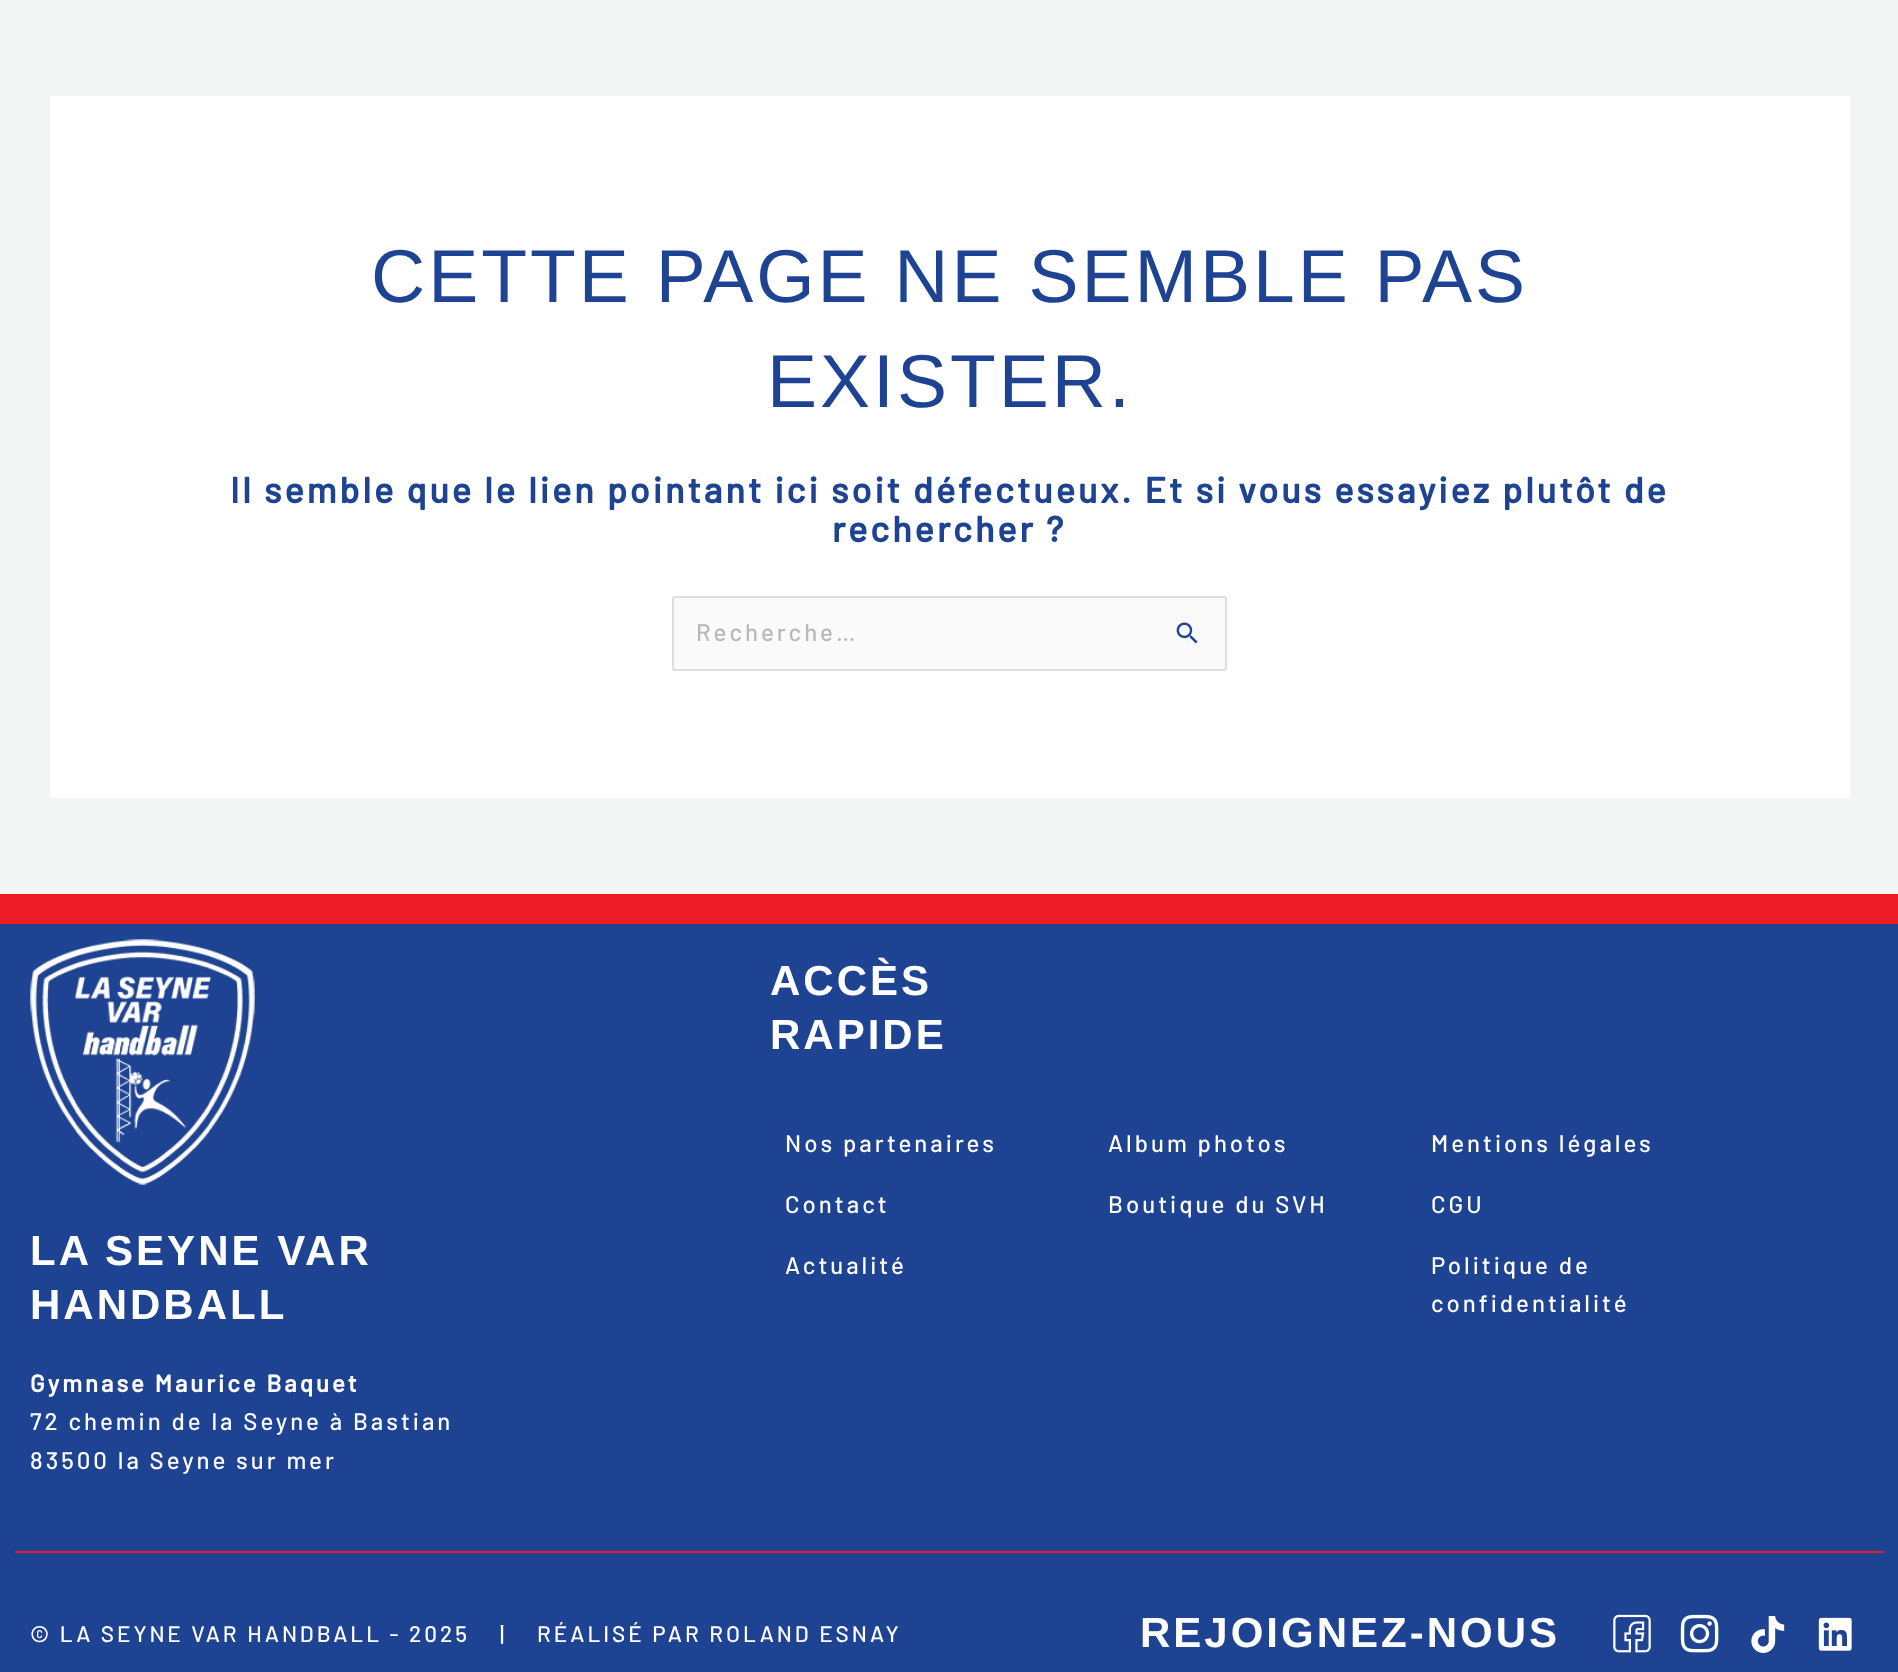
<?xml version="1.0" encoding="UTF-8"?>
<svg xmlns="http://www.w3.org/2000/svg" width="1898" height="1672">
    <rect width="100%" height="100%" fill="#F2F5F4"/>
    <rect x="50" y="96" width="1800" height="702" fill="#FFFFFF"/>
    <text x="371" y="302" font-family="Liberation Sans" font-size="75" letter-spacing="3" fill="#1F4393">CETTE PAGE NE SEMBLE PAS</text>
    <text x="767" y="407" font-family="Liberation Sans" font-size="75" letter-spacing="3" fill="#1F4393">EXISTER.</text>
    <text x="230" y="503" font-family="Barlow" font-size="36" font-weight="700" letter-spacing="3" fill="#1F4393">Il semble que le lien pointant ici soit défectueux. Et si vous essayiez plutôt de</text>
    <text x="832" y="542" font-family="Barlow" font-size="36" font-weight="700" letter-spacing="3" fill="#1F4393">rechercher ?</text>
    <rect x="673" y="597" width="553" height="73" rx="2" fill="#FAFAFA" stroke="#DDDDDD" stroke-width="2"/>
    <text x="696" y="641" font-family="Barlow" font-size="24" font-weight="500" letter-spacing="3" fill="#B8B8B8">Recherche…</text>
    <image x="1176" y="622" width="22" height="22" href="img_01.png"/>
    <rect x="0" y="894" width="1898" height="30" fill="#EC1D26"/>
    <rect x="0" y="924" width="1898" height="748" fill="#1F4393"/>
    <text font-family="Liberation Sans" font-size="42" font-weight="700" letter-spacing="3" fill="#FFFFFF">
        <tspan x="770" y="995">ACCÈS</tspan>
        <tspan x="770" y="1049">RAPIDE</tspan>
    </text>
    <text x="785" y="1152" font-family="Barlow" font-size="24" font-weight="500" letter-spacing="3" fill="#FFFFFF">Nos partenaires</text>
    <text x="785" y="1213" font-family="Barlow" font-size="24" font-weight="500" letter-spacing="3" fill="#FFFFFF">Contact</text>
    <text x="785" y="1274" font-family="Barlow" font-size="24" font-weight="500" letter-spacing="3" fill="#FFFFFF">Actualité</text>
    <text x="1108" y="1152" font-family="Barlow" font-size="24" font-weight="500" letter-spacing="3" fill="#FFFFFF">Album photos</text>
    <text x="1108" y="1213" font-family="Barlow" font-size="24" font-weight="500" letter-spacing="3" fill="#FFFFFF">Boutique du SVH</text>
    <text x="1431" y="1152" font-family="Barlow" font-size="24" font-weight="500" letter-spacing="3" fill="#FFFFFF">Mentions légales</text>
    <text x="1431" y="1213" font-family="Barlow" font-size="24" font-weight="500" letter-spacing="3" fill="#FFFFFF">CGU</text>
    <text font-family="Barlow" font-size="24" font-weight="500" letter-spacing="3" fill="#FFFFFF">
        <tspan x="1431" y="1274">Politique de</tspan>
        <tspan x="1431" y="1312">confidentialité</tspan>
    </text>
    <image x="30" y="939" width="225" height="246" href="img_02.png"/>
    <text font-family="Liberation Sans" font-size="42" font-weight="700" letter-spacing="3" fill="#FFFFFF">
        <tspan x="30" y="1265">LA SEYNE VAR</tspan>
        <tspan x="30" y="1319">HANDBALL</tspan>
    </text>
    <text x="30" y="1392" font-family="Barlow" font-size="24" font-weight="700" letter-spacing="3" fill="#FFFFFF">Gymnase Maurice Baquet</text>
    <text font-family="Barlow" font-size="24" font-weight="500" letter-spacing="3" fill="#FFFFFF">
        <tspan x="30" y="1430">72 chemin de la Seyne à Bastian</tspan>
        <tspan x="30" y="1469">83500 la Seyne sur mer</tspan>
    </text>
    <rect x="15" y="1551" width="1869" height="2" fill="#EC1D26"/>
    <text x="30" y="1642" font-family="Barlow" font-size="22.5" font-weight="500" letter-spacing="3" fill="#FFFFFF">© LA SEYNE VAR HANDBALL - 2025</text>
    <text x="500" y="1642" font-family="Barlow" font-size="22.5" font-weight="500" letter-spacing="3" fill="#FFFFFF">|</text>
    <text x="537" y="1642" font-family="Barlow" font-size="22.5" font-weight="500" letter-spacing="3" fill="#FFFFFF">RÉALISÉ PAR ROLAND ESNAY</text>
    <text x="1140" y="1647" font-family="Liberation Sans" font-size="42" font-weight="700" letter-spacing="3" fill="#FFFFFF">REJOIGNEZ-NOUS</text>
    <image x="1613" y="1614" width="38" height="39" href="img_03.png"/>
    <image x="1680" y="1614" width="39" height="39" href="img_04.png"/>
    <image x="1751" y="1616" width="34" height="37" href="img_05.png"/>
    <image x="1818" y="1617" width="34" height="34" href="img_06.png"/>
</svg>
